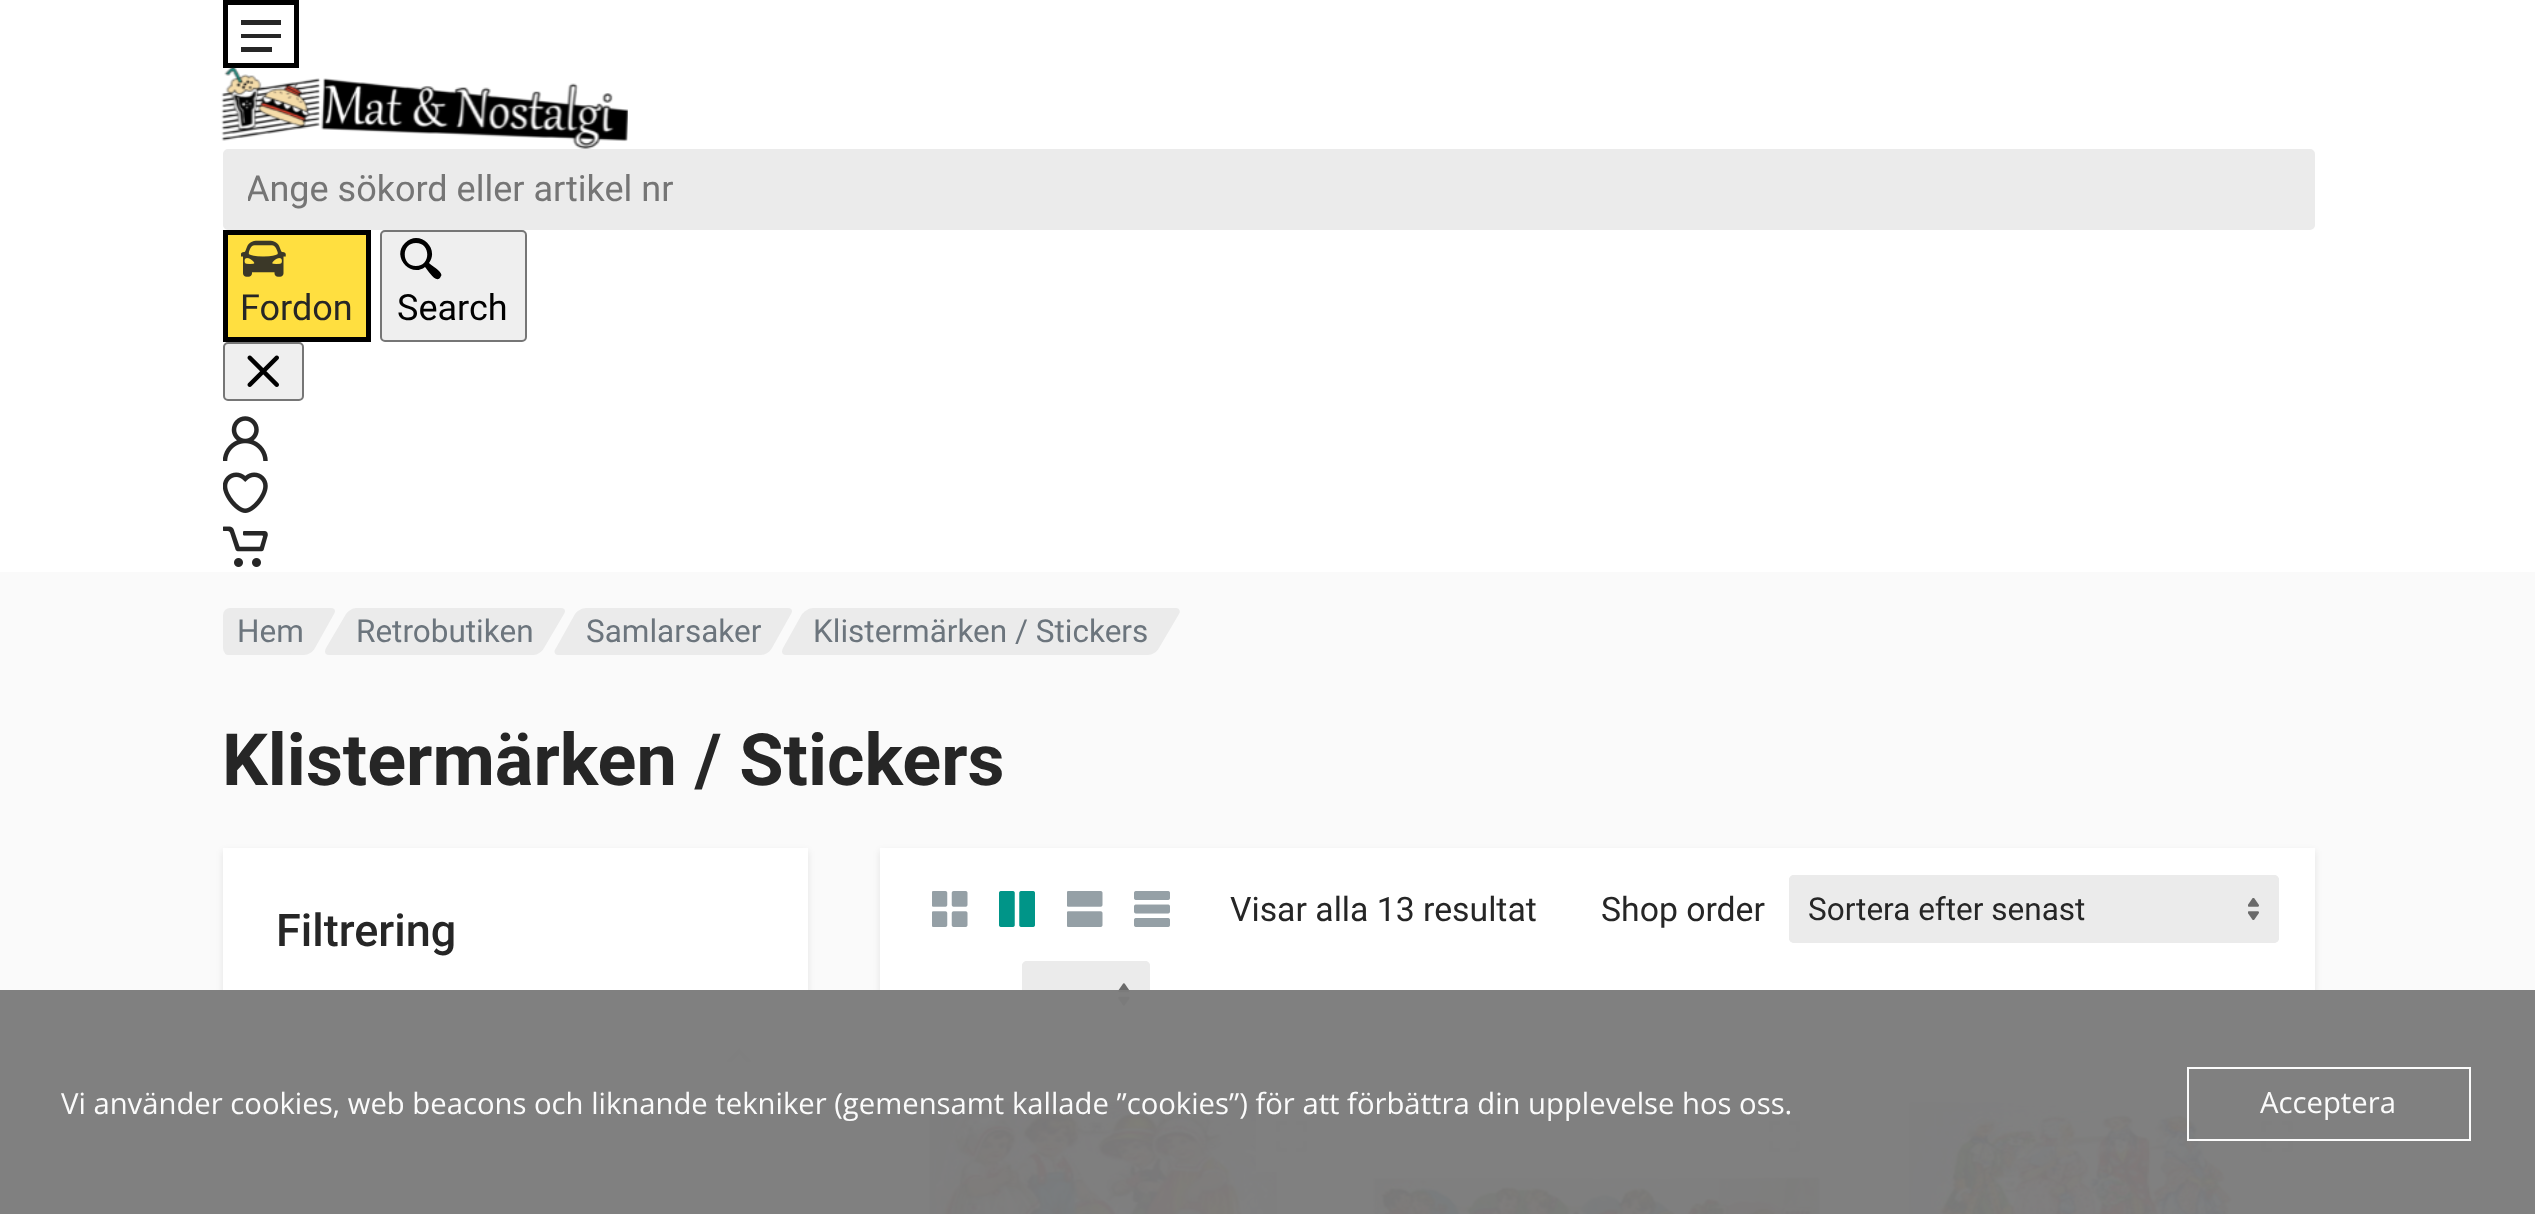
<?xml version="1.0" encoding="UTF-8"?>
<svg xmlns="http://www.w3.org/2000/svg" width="2535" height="1214">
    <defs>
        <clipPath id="clip1"><rect x="248" y="169" width="2043" height="43"/></clipPath>
        <filter id="blur1" x="-50%" y="-200%" width="200%" height="500%"><feGaussianBlur stdDeviation="3.5"/></filter>
    </defs>
    <rect width="100%" height="100%" fill="#FAFAFA"/>
    <rect x="0" y="0" width="2535" height="572" fill="#FFFFFF"/>
    <rect x="225.5" y="2.5" width="71" height="63" fill="none" stroke="#000000" stroke-width="5"/>
    <path d="M 241 38 V 34 H 281 V 38 Z M 241 20 H 281 V 25 H 241 Z M 272 52 H 241 V 47 H 272 Z" fill="#262626"/>
    <image x="221" y="67" width="407" height="82" href="img_01.png"/>
    <rect x="224" y="150" width="2090" height="79" rx="4" fill="#EBEBEB" stroke="#EBEBEB" stroke-width="2"/>
    <g clip-path="url(#clip1)">
        <text x="246" y="201" font-family="Roboto" font-size="36" fill="#757575">Ange sökord eller artikel nr</text>
    </g>
    <rect x="225.5" y="232.5" width="143" height="107" fill="#FFDF40" stroke="#000000" stroke-width="5"/>
    <image x="241" y="240" width="45" height="37" href="img_02.png"/>
    <text x="240" y="320" font-family="Roboto" font-size="36" fill="#262626">Fordon</text>
    <rect x="381" y="231" width="145" height="110" rx="4" fill="#EFEFEF" stroke="#767676" stroke-width="2"/>
    <path d="M 441 276 C 437 286 428 270 425 267 C 411 278 391 257 405 243 C 419 229 440 248 429 263 C 431 265 444 273 441 276 Z M 416 243 C 401 243 401 266 416 266 C 431 266 431 243 416 243 Z" fill="#000000"/>
    <text x="397" y="320" font-family="Roboto" font-size="36" fill="#000000">Search</text>
    <rect x="224" y="343" width="79" height="57" rx="4" fill="#EFEFEF" stroke="#767676" stroke-width="2"/>
    <image x="247" y="355" width="32" height="32" href="img_03.png"/>
    <image x="223" y="416" width="45" height="45" href="img_04.png"/>
    <image x="223" y="472" width="45" height="41" href="img_05.png"/>
    <image x="223" y="526" width="45" height="41" href="img_06.png"/>
    <path d="M 256 608 H 331 C 335 608 336 611 334 614 L 315 648 C 313 652 308 655 304 655 H 228 C 225 655 223 652 226 648 L 245 614 C 247 611 252 608 256 608 Z" fill="#EBEBEB"/>
    <rect x="223" y="608" width="70" height="47" rx="7" fill="#EBEBEB"/>
    <text x="237" y="642" font-family="Roboto" font-size="31.5" fill="#6C757D">Hem</text>
    <path d="M 356 608 H 561 C 565 608 566 611 564 614 L 544 648 C 542 652 537 655 534 655 H 329 C 325 655 324 652 326 648 L 346 614 C 348 611 353 608 356 608 Z" fill="#EBEBEB"/>
    <text x="356" y="642" font-family="Roboto" font-size="31.5" fill="#6C757D">Retrobutiken</text>
    <path d="M 586 608 H 788 C 792 608 793 611 791 614 L 772 648 C 770 652 765 655 761 655 H 558 C 555 655 553 652 556 648 L 575 614 C 577 611 582 608 586 608 Z" fill="#EBEBEB"/>
    <text x="586" y="642" font-family="Roboto" font-size="31.5" fill="#6C757D">Samlarsaker</text>
    <path d="M 813 608 H 1176 C 1179 608 1181 611 1179 614 L 1159 648 C 1157 652 1152 655 1148 655 H 786 C 782 655 781 652 783 648 L 802 614 C 805 611 809 608 813 608 Z" fill="#EBEBEB"/>
    <text x="813" y="642" font-family="Roboto" font-size="31.5" fill="#6C757D">Klistermärken / Stickers</text>
    <text x="222" y="785" font-family="Roboto" font-size="72" font-weight="700" fill="#262626">Klistermärken / Stickers</text>
    <rect x="223" y="851" width="585" height="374" fill="#000000" fill-opacity="0.09" filter="url(#blur1)"/>
    <rect x="223" y="848" width="585" height="366" fill="#FFFFFF"/>
    <text x="276" y="946" font-family="Roboto" font-size="45" font-weight="500" fill="#262626">Filtrering</text>
    <rect x="223" y="1001" width="585" height="2" fill="#EBEBEB"/>
    <image x="727" y="1048" width="25" height="14" href="img_07.png"/>
    <rect x="880" y="851" width="1435" height="207" fill="#000000" fill-opacity="0.09" filter="url(#blur1)"/>
    <rect x="880" y="848" width="1435" height="207" fill="#FFFFFF"/>
    <image x="932" y="891" width="36" height="36" href="img_08.png"/>
    <image x="999" y="891" width="36" height="36" href="img_09.png"/>
    <image x="1067" y="891" width="36" height="36" href="img_10.png"/>
    <image x="1134" y="891" width="36" height="36" href="img_11.png"/>
    <text x="1230" y="921" font-family="Roboto" font-size="33.75" fill="#262626">Visar alla 13 resultat</text>
    <text x="1601" y="921" font-family="Roboto" font-size="33.75" fill="#262626">Shop order</text>
    <rect x="1789" y="875" width="490" height="68" rx="5" fill="#EBEBEB"/>
    <image x="2248" y="898" width="11" height="22" href="img_12.png"/>
    <rect x="1790" y="876" width="488" height="66" rx="4" fill="none" stroke="#EBEBEB" stroke-width="2"/>
    <text x="1808" y="920" font-family="Roboto" font-size="31.5" fill="#262626">Sortera efter senast</text>
    <rect x="1022" y="961" width="128" height="67" rx="5" fill="#EBEBEB"/>
    <image x="1118" y="983" width="12" height="23" href="img_13.png"/>
    <rect x="1023" y="962" width="126" height="65" rx="4" fill="none" stroke="#EBEBEB" stroke-width="2"/>
    <rect x="880" y="1103" width="448" height="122" fill="#000000" fill-opacity="0.09" filter="url(#blur1)"/>
    <rect x="880" y="1100" width="448" height="114" fill="#FFFFFF"/>
    <image x="879" y="1100" width="399" height="114" href="img_14.png"/>
    <rect x="1256" y="1100" width="22" height="72" fill="#FFFFFF"/>
    <image x="1275" y="1120" width="33" height="32" href="img_15.png"/>
    <rect x="1373" y="1103" width="447" height="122" fill="#000000" fill-opacity="0.09" filter="url(#blur1)"/>
    <rect x="1373" y="1100" width="447" height="114" fill="#FFFFFF"/>
    <image x="1372" y="1104" width="449" height="110" href="img_16.png"/>
    <image x="1768" y="1120" width="32" height="32" href="img_17.png"/>
    <rect x="1865" y="1103" width="448" height="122" fill="#000000" fill-opacity="0.09" filter="url(#blur1)"/>
    <rect x="1865" y="1100" width="448" height="114" fill="#FFFFFF"/>
    <image x="1907" y="1100" width="364" height="114" href="img_18.png"/>
    <rect x="2241" y="1100" width="30" height="72" fill="#FFFFFF"/>
    <image x="2261" y="1120" width="32" height="32" href="img_19.png"/>
    <rect x="0" y="990" width="2535" height="224" fill="#7C7C7C" fill-opacity="0.97"/>
    <text x="61" y="1114" font-family="Open Sans" font-size="29.25" fill="#FBFBFB">Vi använder cookies, web beacons och liknande tekniker (gemensamt kallade ”cookies”) för att förbättra din upplevelse hos oss.</text>
    <rect x="2188" y="1068" width="282" height="72" fill="none" stroke="#FFFFFF" stroke-opacity="0.97" stroke-width="2"/>
    <text x="2260" y="1113" font-family="Open Sans" font-size="29.25" fill="#FBFBFB">Acceptera</text>
</svg>
